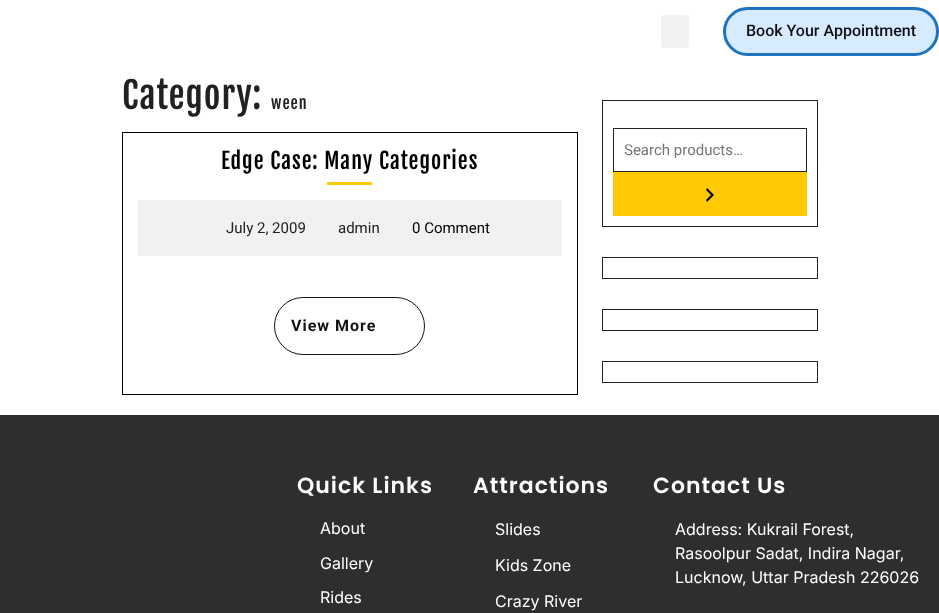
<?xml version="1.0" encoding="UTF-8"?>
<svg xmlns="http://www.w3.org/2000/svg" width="939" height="613">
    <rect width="100%" height="100%" fill="#FFFFFF"/>
    <rect x="661" y="15" width="28" height="33" rx="3" fill="#F2F2F2"/>
    <rect x="724.5" y="8.5" width="213" height="46" rx="23" fill="#D6EBFF" stroke="#1E73BE" stroke-width="3"/>
    <text x="746" y="36" font-family="Roboto" font-size="16" font-weight="500" fill="#121111">Book Your Appointment</text>
    <text x="122" y="109" font-family="Fjalla One" font-size="36" letter-spacing="1" fill="#212121">Category:</text>
    <text x="271" y="109" font-family="Fjalla One" font-size="16" letter-spacing="1" fill="#212121">ween</text>
    <rect x="122.5" y="132.5" width="455" height="262" fill="none" stroke="#000000"/>
    <text x="221" y="169" font-family="Fjalla One" font-size="22" letter-spacing="1" fill="#000000">Edge Case: Many Categories</text>
    <rect x="327" y="182" width="45" height="3" fill="#FFCA04"/>
    <rect x="138" y="200" width="424" height="56" fill="#F1F1F1"/>
    <text x="226" y="233" font-family="Roboto" font-size="15" fill="#212121">July 2, 2009</text>
    <text x="338" y="233" font-family="Roboto" font-size="15" fill="#212121">admin</text>
    <text x="412" y="233" font-family="Roboto" font-size="15" fill="#000000">0 Comment</text>
    <rect x="274.5" y="297.5" width="150" height="57" rx="28.5" fill="none" stroke="#121317"/>
    <text x="291" y="331" font-family="Roboto" font-size="16" font-weight="700" letter-spacing="1" fill="#121317">View More</text>
    <rect x="602.5" y="100.5" width="215" height="126" fill="none" stroke="#212121"/>
    <rect x="613.5" y="128.5" width="193" height="43" fill="none" stroke="#212121"/>
    <text x="624" y="155" font-family="Roboto" font-size="15" fill="#757575">Search products…</text>
    <rect x="613" y="172" width="194" height="44" fill="#FFCA04"/>
    <image x="706" y="188" width="8" height="14" href="img_01.png"/>
    <rect x="602.5" y="257.5" width="215" height="21" fill="none" stroke="#212121"/>
    <rect x="602.5" y="309.5" width="215" height="21" fill="none" stroke="#212121"/>
    <rect x="602.5" y="361.5" width="215" height="21" fill="none" stroke="#212121"/>
    <rect x="0" y="415" width="939" height="198" fill="#2E2E2E"/>
    <text x="297" y="493" font-family="Poppins" font-size="22" font-weight="600" letter-spacing="1" fill="#FFFFFF">Quick Links</text>
    <text x="320" y="534" font-family="Inter" font-size="16" fill="#FFFFFF">About</text>
    <text x="320" y="569" font-family="Inter" font-size="16" fill="#FFFFFF">Gallery</text>
    <text x="320" y="603" font-family="Inter" font-size="16" fill="#FFFFFF">Rides</text>
    <text x="473" y="493" font-family="Poppins" font-size="22" font-weight="600" letter-spacing="1" fill="#FFFFFF">Attractions</text>
    <text x="495" y="535" font-family="Inter" font-size="16" fill="#FFFFFF">Slides</text>
    <text x="495" y="571" font-family="Inter" font-size="16" fill="#FFFFFF">Kids Zone</text>
    <text x="495" y="607" font-family="Inter" font-size="16" fill="#FFFFFF">Crazy River</text>
    <text x="653" y="493" font-family="Poppins" font-size="22" font-weight="600" letter-spacing="1" fill="#FFFFFF">Contact Us</text>
    <text font-family="Inter" font-size="16" fill="#FFFFFF">
        <tspan x="675" y="535">Address: Kukrail Forest,</tspan>
        <tspan x="675" y="559">Rasoolpur Sadat, Indira Nagar,</tspan>
        <tspan x="675" y="583">Lucknow, Uttar Pradesh 226026</tspan>
    </text>
</svg>
